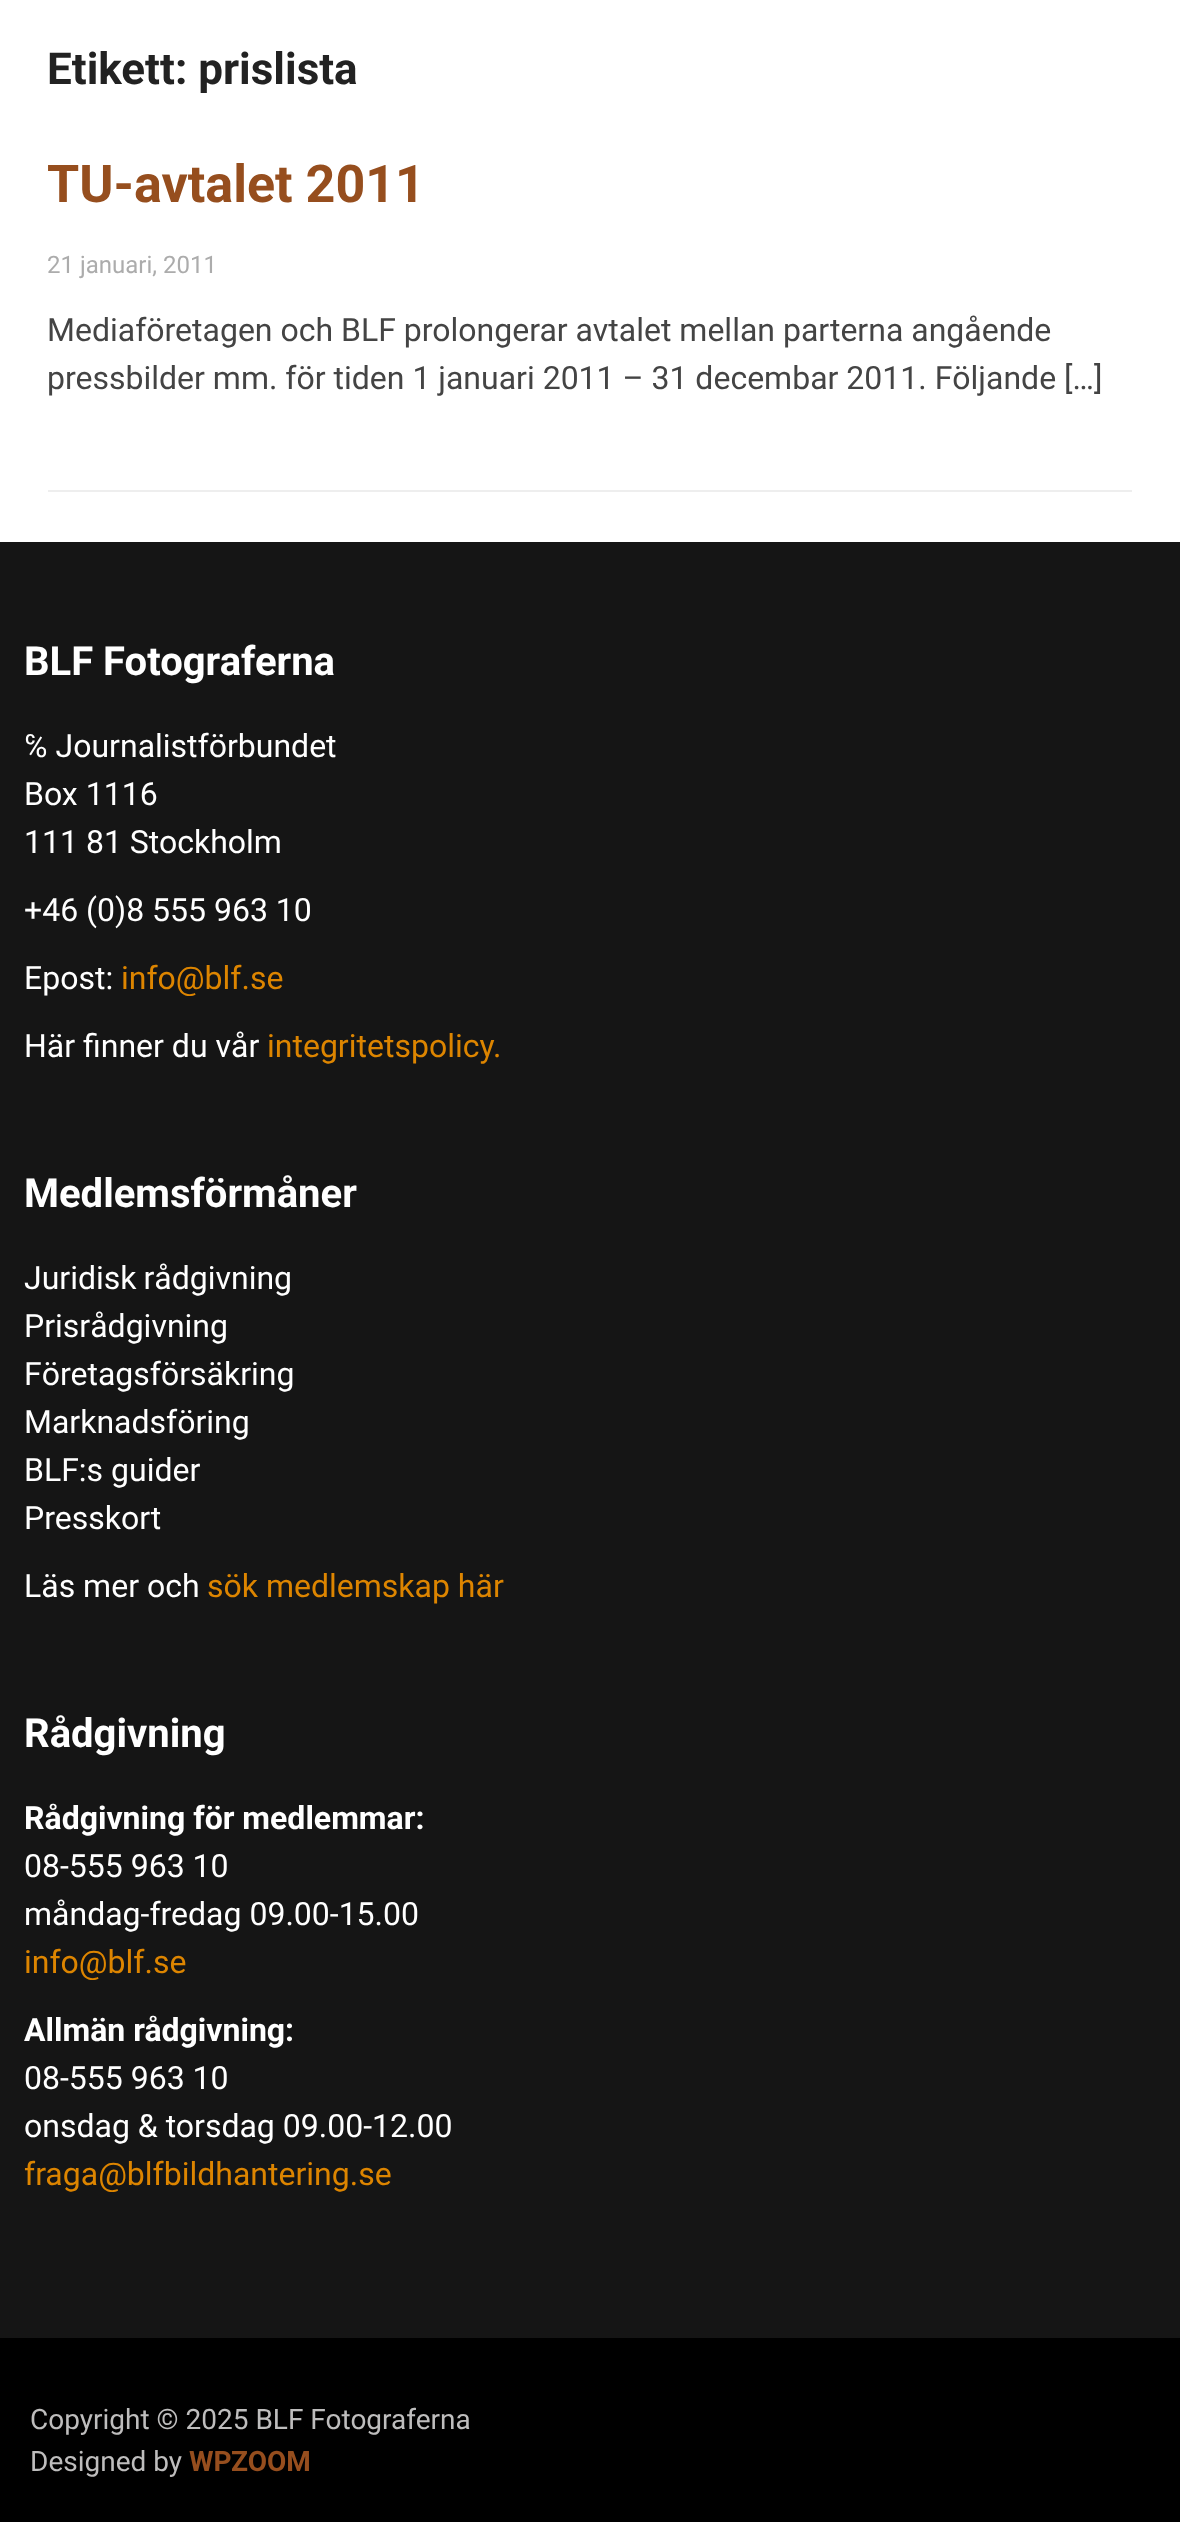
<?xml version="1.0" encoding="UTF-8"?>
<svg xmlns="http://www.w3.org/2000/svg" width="1180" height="2522">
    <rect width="100%" height="100%" fill="#FFFFFF"/>
    <text x="47" y="84" font-family="Roboto" font-size="44" font-weight="700" fill="#222222">Etikett: prislista</text>
    <rect x="48" y="490" width="1084" height="2" fill="#EEEEEE"/>
    <text x="47" y="202" font-family="Roboto" font-size="52" font-weight="700" fill="#964E1E">TU-avtalet 2011</text>
    <text x="47" y="273" font-family="Roboto" font-size="24" fill="#ACACAC">21 januari, 2011</text>
    <text font-family="Roboto" font-size="32" fill="#444444">
        <tspan x="47" y="341">Mediaföretagen och BLF prolongerar avtalet mellan parterna angående</tspan>
        <tspan x="47" y="389">pressbilder mm. för tiden 1 januari 2011 – 31 decembar 2011. Följande […]</tspan>
    </text>
    <rect x="0" y="2338" width="1180" height="184" fill="#000000"/>
    <rect x="0" y="542" width="1180" height="1796" fill="#151515"/>
    <text x="24" y="675" font-family="Roboto" font-size="40" font-weight="700" fill="#FFFFFF">BLF Fotograferna</text>
    <text font-family="Roboto" font-size="32" fill="#FFFFFF">
        <tspan x="24" y="757">℅ Journalistförbundet</tspan>
        <tspan x="24" y="805">Box 1116</tspan>
        <tspan x="24" y="853">111 81 Stockholm</tspan>
    </text>
    <text x="24" y="921" font-family="Roboto" font-size="32" fill="#FFFFFF">+46 (0)8 555 963 10</text>
    <text x="24" y="989" font-family="Roboto" font-size="32" fill="#FFFFFF">Epost:</text>
    <text x="121" y="989" font-family="Roboto" font-size="32" fill="#DD8500">info@blf.se</text>
    <text x="24" y="1057" font-family="Roboto" font-size="32" fill="#FFFFFF">Här finner du vår</text>
    <text x="267" y="1057" font-family="Roboto" font-size="32" fill="#DD8500">integritetspolicy.</text>
    <text x="24" y="1207" font-family="Roboto" font-size="40" font-weight="700" fill="#FFFFFF">Medlemsförmåner</text>
    <text font-family="Roboto" font-size="32" fill="#FFFFFF">
        <tspan x="24" y="1289" word-spacing="-1">Juridisk rådgivning</tspan>
        <tspan x="24" y="1337">Prisrådgivning</tspan>
        <tspan x="24" y="1385">Företagsförsäkring</tspan>
        <tspan x="24" y="1433">Marknadsföring</tspan>
        <tspan x="24" y="1481">BLF:s guider</tspan>
        <tspan x="24" y="1529">Presskort</tspan>
    </text>
    <text x="24" y="1597" font-family="Roboto" font-size="32" fill="#FFFFFF">Läs mer och</text>
    <text x="207" y="1597" font-family="Roboto" font-size="32" fill="#DD8500">sök medlemskap här</text>
    <text x="24" y="1747" font-family="Roboto" font-size="40" font-weight="700" fill="#FFFFFF">Rådgivning</text>
    <text x="24" y="1829" font-family="Roboto" font-size="32" font-weight="700" fill="#FFFFFF">Rådgivning för medlemmar:</text>
    <text font-family="Roboto" font-size="32" fill="#FFFFFF">
        <tspan x="24" y="1877">08-555 963 10</tspan>
        <tspan x="24" y="1925">måndag-fredag 09.00-15.00</tspan>
    </text>
    <text x="24" y="1973" font-family="Roboto" font-size="32" fill="#DD8500">info@blf.se</text>
    <text x="24" y="2041" font-family="Roboto" font-size="32" font-weight="700" fill="#FFFFFF">Allmän rådgivning:</text>
    <text font-family="Roboto" font-size="32" fill="#FFFFFF">
        <tspan x="24" y="2089">08-555 963 10</tspan>
        <tspan x="24" y="2137">onsdag &amp; torsdag 09.00-12.00</tspan>
    </text>
    <text x="24" y="2185" font-family="Roboto" font-size="32" fill="#DD8500">fraga@blfbildhantering.se</text>
    <text font-family="Roboto" font-size="28" fill="#BEBDBD">
        <tspan x="30" y="2429">Copyright © 2025 BLF Fotograferna</tspan>
        <tspan x="30" y="2471">Designed by</tspan>
    </text>
    <text x="189" y="2471" font-family="Roboto" font-size="28" font-weight="700" fill="#964E1E">WPZOOM</text>
</svg>
